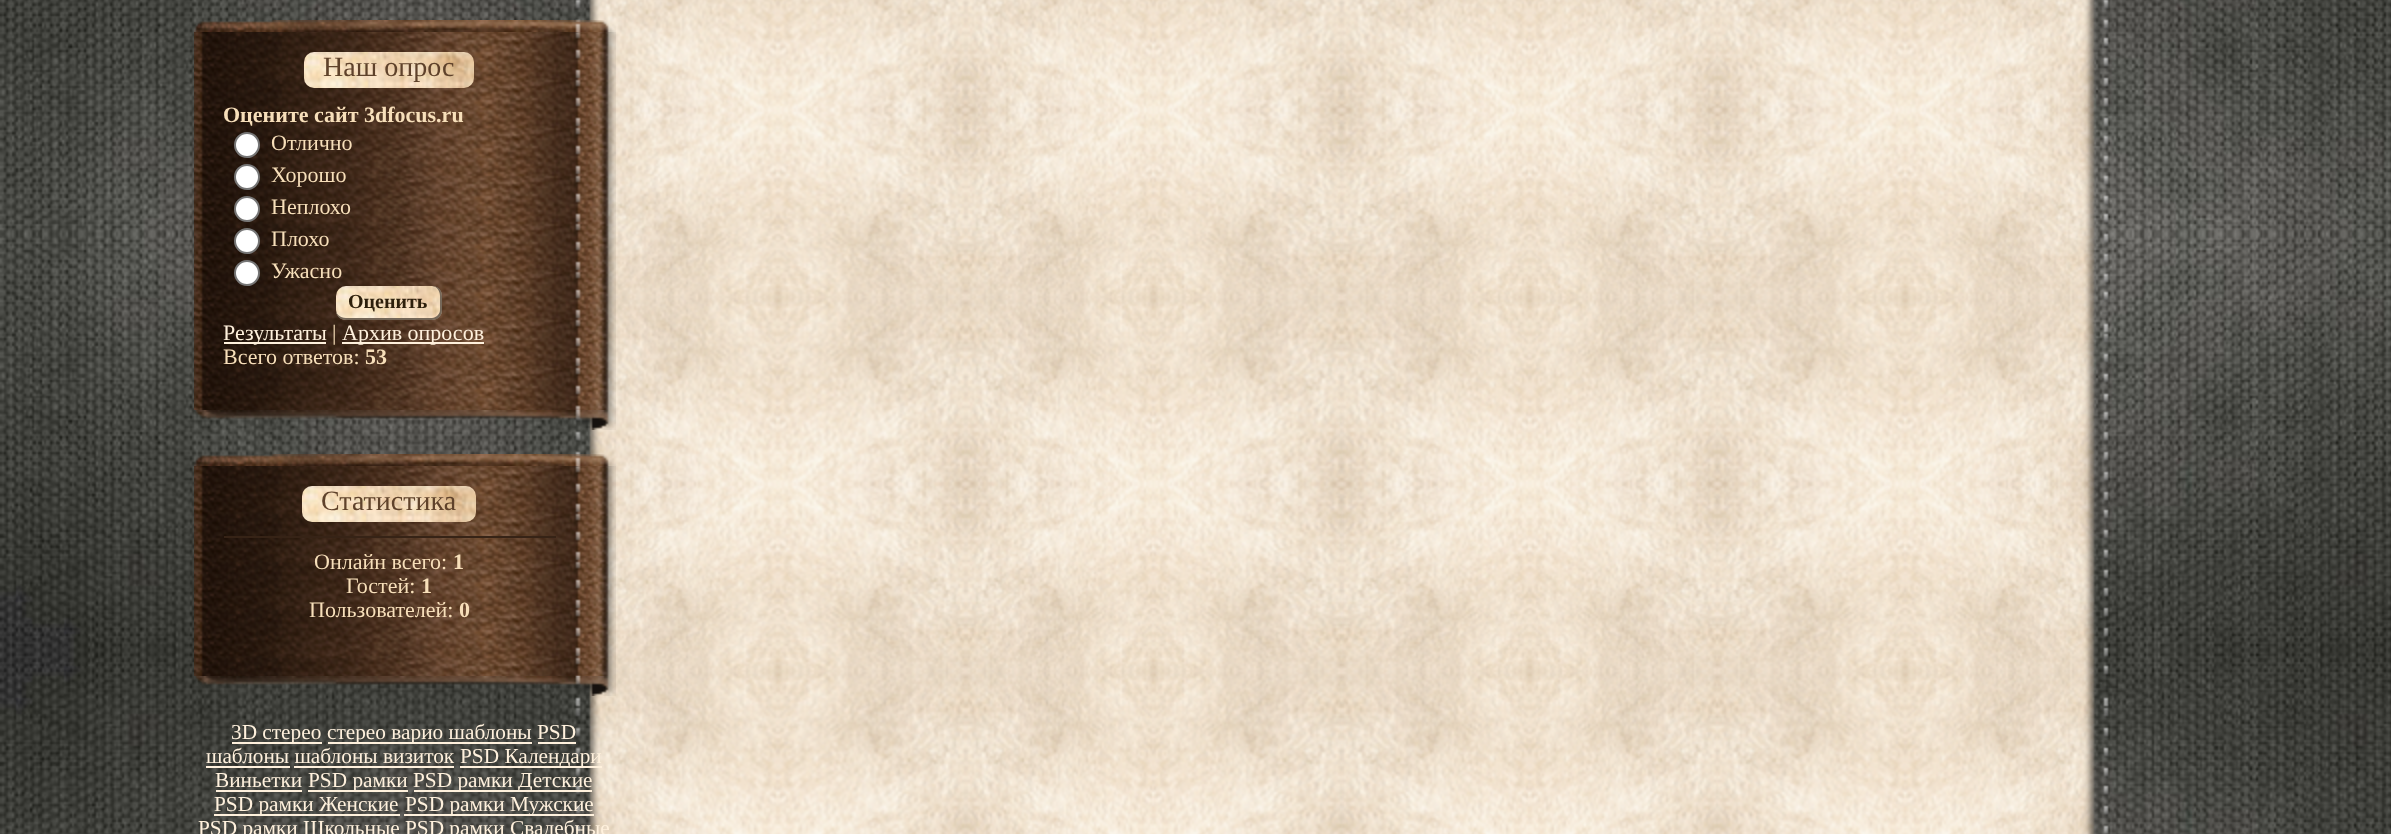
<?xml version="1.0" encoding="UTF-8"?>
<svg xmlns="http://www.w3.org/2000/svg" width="2391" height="834">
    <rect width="100%" height="100%" fill="#FFFFFF"/>
    <image x="0" y="0" width="2391" height="834" href="img_01.png"/>
    <image x="574" y="0" width="1536" height="834" href="img_02.png"/>
    <image x="194" y="20" width="422" height="12" href="img_03.png"/>
    <image x="194" y="32" width="422" height="378" href="img_04.png"/>
    <image x="304" y="52" width="170" height="36" href="img_05.png"/>
    <text x="323" y="76" font-family="Liberation Serif" font-size="28" fill="#5F422B">Наш опрос</text>
    <text x="223" y="122" font-family="Liberation Serif" font-size="22" font-weight="700" fill="#F7DFBA">Оцените сайт 3dfocus.ru</text>
    <circle cx="247" cy="145" r="12" fill="#FFFFFF" stroke="#767676" stroke-width="2"/>
    <text x="271" y="150" font-family="Liberation Serif" font-size="22" fill="#F7DFBA">Отлично</text>
    <circle cx="247" cy="177" r="12" fill="#FFFFFF" stroke="#767676" stroke-width="2"/>
    <text x="271" y="182" font-family="Liberation Serif" font-size="22" fill="#F7DFBA">Хорошо</text>
    <circle cx="247" cy="209" r="12" fill="#FFFFFF" stroke="#767676" stroke-width="2"/>
    <text x="271" y="214" font-family="Liberation Serif" font-size="22" fill="#F7DFBA">Неплохо</text>
    <circle cx="247" cy="241" r="12" fill="#FFFFFF" stroke="#767676" stroke-width="2"/>
    <text x="271" y="246" font-family="Liberation Serif" font-size="22" fill="#F7DFBA">Плохо</text>
    <circle cx="247" cy="273" r="12" fill="#FFFFFF" stroke="#767676" stroke-width="2"/>
    <text x="271" y="278" font-family="Liberation Serif" font-size="22" fill="#F7DFBA">Ужасно</text>
    <image x="336" y="286" width="106" height="34" href="img_06.png"/>
    <path d="M 346 286 H 432 C 438 286 442 290 442 296 V 310 C 442 316 438 320 432 320 H 346 C 340 320 336 316 336 310 V 296 C 336 290 340 286 346 286 Z M 346 286 H 432 C 436 286 440 290 440 296 V 310 C 440 314 436 318 432 318 H 346 C 340 318 336 314 336 310 V 296 C 336 290 340 286 346 286 Z" fill="#756859" fill-rule="evenodd"/>
    <text x="348" y="308" font-family="Liberation Serif" font-size="20" font-weight="700" fill="#2D1F0B">Оценить</text>
    <rect x="224" y="342" width="102" height="2" fill="#FFF1DD"/>
    <text x="223" y="340" font-family="Liberation Serif" font-size="22" fill="#FFF1DD">Результаты</text>
    <text x="332" y="340" font-family="Liberation Serif" font-size="22" fill="#F7DFBA">|</text>
    <rect x="342" y="342" width="142" height="2" fill="#FFF1DD"/>
    <text x="342" y="340" font-family="Liberation Serif" font-size="22" fill="#FFF1DD">Архив опросов</text>
    <text x="223" y="364" font-family="Liberation Serif" font-size="22" fill="#F7DFBA">Всего ответов:</text>
    <text x="365" y="364" font-family="Liberation Serif" font-size="22" font-weight="700" fill="#F7DFBA">53</text>
    <image x="195" y="410" width="421" height="20" href="img_07.png"/>
    <image x="194" y="454" width="422" height="12" href="img_08.png"/>
    <image x="194" y="466" width="422" height="210" href="img_09.png"/>
    <image x="302" y="486" width="174" height="36" href="img_10.png"/>
    <text x="321" y="510" font-family="Liberation Serif" font-size="28" fill="#5F422B">Статистика</text>
    <rect x="224" y="536" width="332" height="2" fill="#362316"/>
    <text x="314" y="569" font-family="Liberation Serif" font-size="22" fill="#F7DFBA">Онлайн всего:</text>
    <text x="453" y="569" font-family="Liberation Serif" font-size="22" font-weight="700" fill="#F7DFBA">1</text>
    <text x="346" y="593" font-family="Liberation Serif" font-size="22" fill="#F7DFBA">Гостей:</text>
    <text x="421" y="593" font-family="Liberation Serif" font-size="22" font-weight="700" fill="#F7DFBA">1</text>
    <text x="309" y="617" font-family="Liberation Serif" font-size="22" fill="#F7DFBA">Пользователей:</text>
    <text x="459" y="617" font-family="Liberation Serif" font-size="22" font-weight="700" fill="#F7DFBA">0</text>
    <image x="195" y="676" width="421" height="20" href="img_11.png"/>
    <rect x="232" y="742" width="90" height="2" fill="#FFF1DD"/>
    <text x="231" y="739" font-family="Liberation Serif" font-size="21.3" fill="#FFF1DD">3D стерео</text>
    <rect x="328" y="742" width="204" height="2" fill="#FFF1DD"/>
    <text x="327" y="739" font-family="Liberation Serif" font-size="21.3" fill="#FFF1DD">стерео варио шаблоны PSD</text>
    <rect x="538" y="742" width="38" height="2" fill="#FFF1DD"/>
    <text x="206" y="763" font-family="Liberation Serif" font-size="21.3" fill="#FFF1DD">шаблоны шаблоны визиток</text>
    <rect x="206" y="766" width="84" height="2" fill="#FFF1DD"/>
    <rect x="294" y="766" width="160" height="2" fill="#FFF1DD"/>
    <rect x="460" y="766" width="142" height="2" fill="#FFF1DD"/>
    <text x="460" y="763" font-family="Liberation Serif" font-size="21.3" fill="#FFF1DD">PSD Календари</text>
    <text x="215" y="787" font-family="Liberation Serif" font-size="21.3" fill="#FFF1DD">Виньетки</text>
    <rect x="216" y="790" width="86" height="2" fill="#FFF1DD"/>
    <rect x="308" y="790" width="100" height="2" fill="#FFF1DD"/>
    <text x="308" y="787" font-family="Liberation Serif" font-size="21.3" fill="#FFF1DD">PSD рамки</text>
    <rect x="414" y="790" width="178" height="2" fill="#FFF1DD"/>
    <text x="413" y="787" font-family="Liberation Serif" font-size="21.3" fill="#FFF1DD">PSD рамки Детские</text>
    <rect x="214" y="814" width="186" height="2" fill="#FFF1DD"/>
    <text x="214" y="811" font-family="Liberation Serif" font-size="21.3" fill="#FFF1DD">PSD рамки Женские</text>
    <rect x="404" y="814" width="190" height="2" fill="#FFF1DD"/>
    <text x="405" y="811" font-family="Liberation Serif" font-size="21.3" fill="#FFF1DD">PSD рамки Мужские</text>
    <text x="198" y="835" font-family="Liberation Serif" font-size="21.3" fill="#FFF1DD">PSD рамки Школьные PSD рамки Свадебные</text>
</svg>
